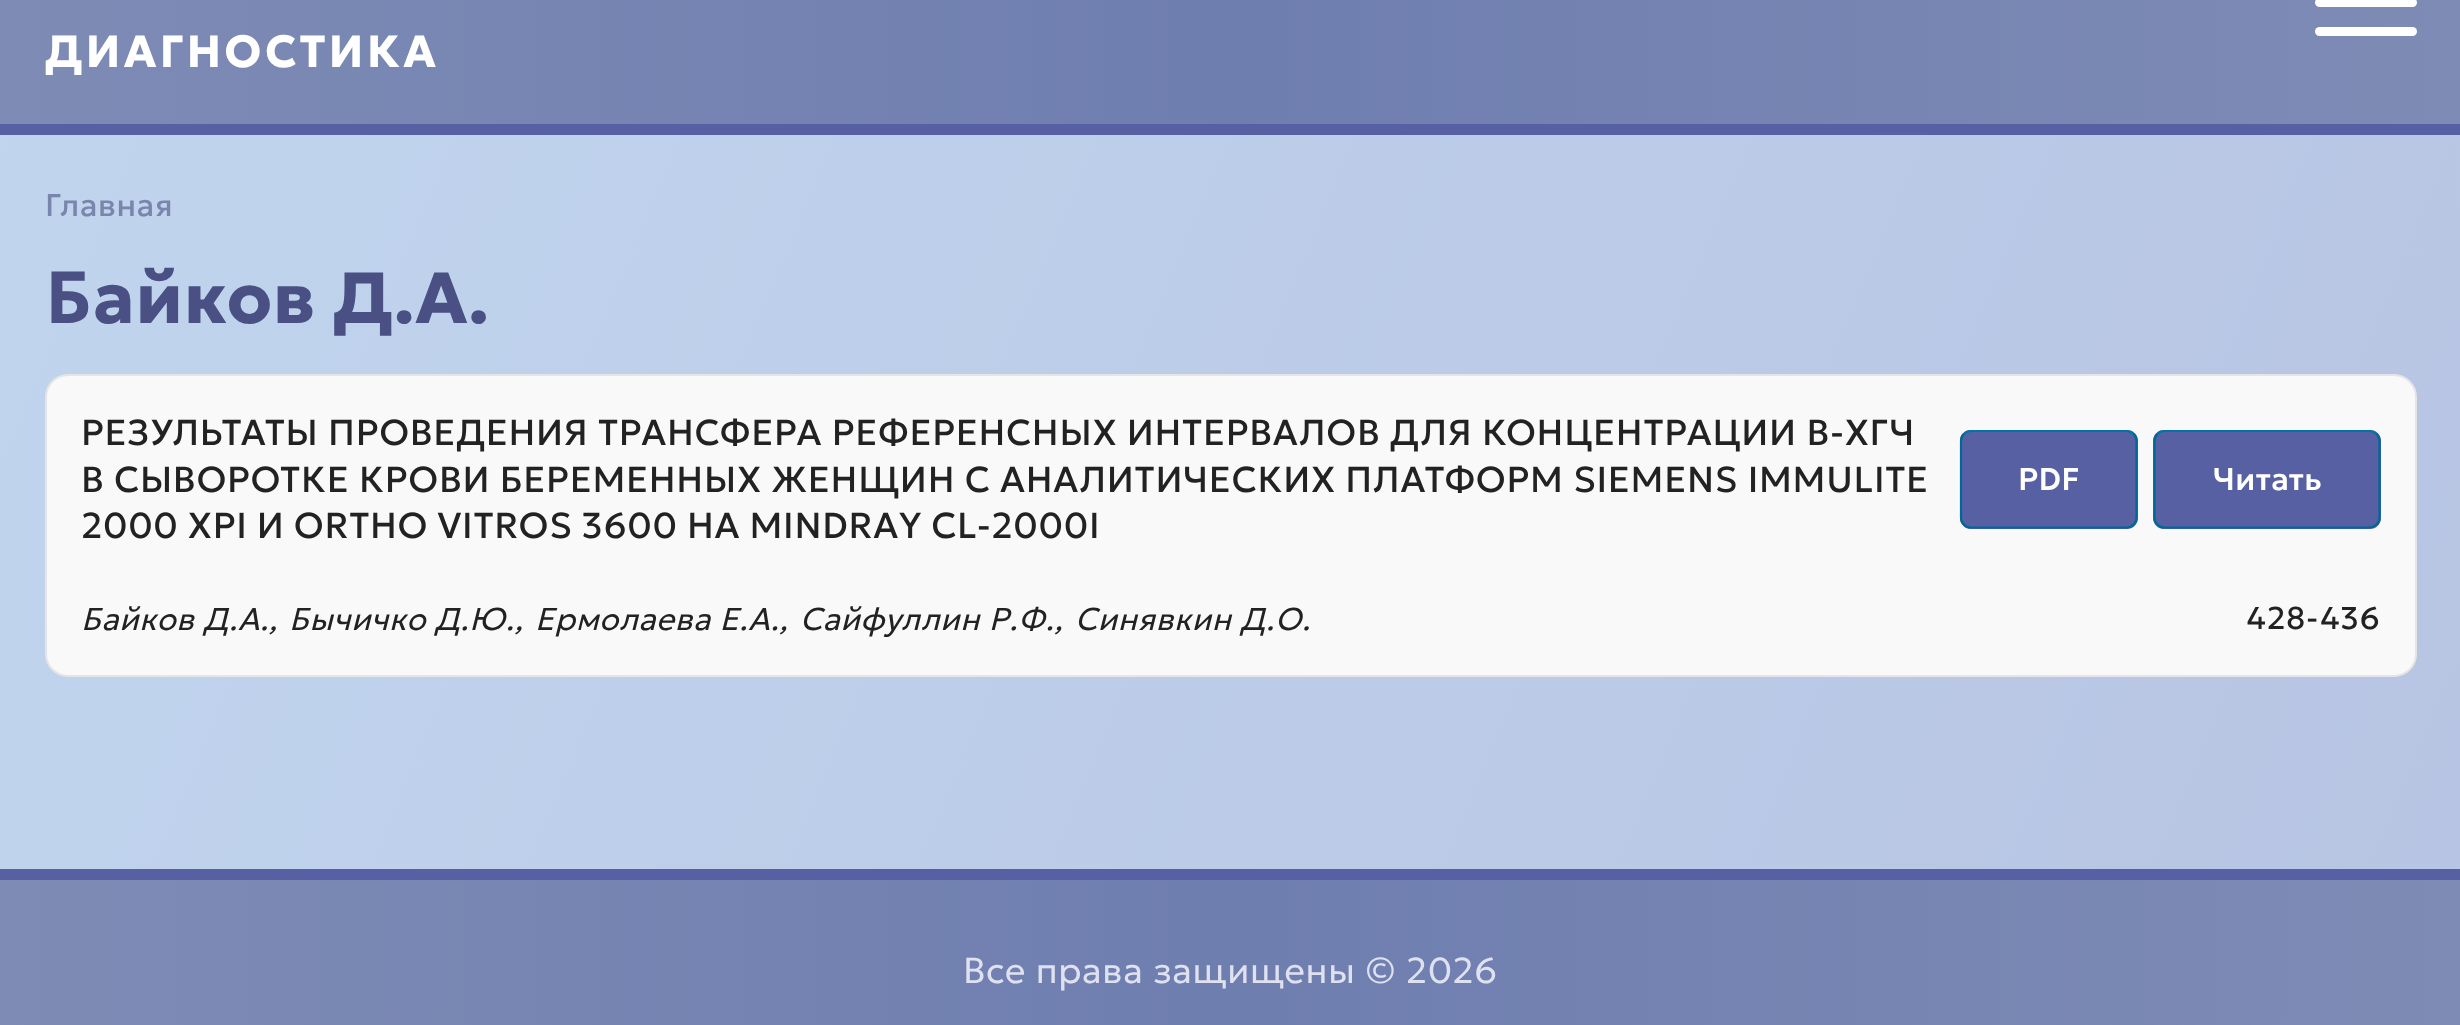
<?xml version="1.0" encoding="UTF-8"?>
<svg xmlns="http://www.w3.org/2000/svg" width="2460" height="1025">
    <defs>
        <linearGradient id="g1" gradientUnits="userSpaceOnUse" x1="-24" y1="-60" x2="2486" y2="1005"><stop offset="0" stop-color="#C1D5EE"/><stop offset="1" stop-color="#B7C4E3"/></linearGradient>
        <linearGradient id="g2" gradientUnits="userSpaceOnUse" x1="0" y1="3.4" x2="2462" y2="3.4"><stop offset="0" stop-color="#7E8BB5"/><stop offset="0.5" stop-color="#6E7EAF"/><stop offset="1" stop-color="#7E8BB5"/></linearGradient>
        <linearGradient id="g3" gradientUnits="userSpaceOnUse" x1="0" y1="971" x2="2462" y2="971"><stop offset="0" stop-color="#7E8BB5"/><stop offset="0.5" stop-color="#6E7EAF"/><stop offset="1" stop-color="#7E8BB5"/></linearGradient>
    </defs>
    <rect width="100%" height="100%" fill="#FFFFFF"/>
    <rect x="0" y="135" width="2460" height="734" fill="url(#g1)"/>
    <rect x="0" y="0" width="2460" height="124" fill="url(#g2)"/>
    <rect x="0" y="124" width="2460" height="11" fill="#5760A2"/>
    <rect x="2315" y="-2" width="102" height="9" rx="4.5" fill="#FFFFFF"/>
    <rect x="2315" y="27" width="102" height="9" rx="4.5" fill="#FFFFFF"/>
    <text x="45" y="67" font-family="Geologica" font-size="45" font-weight="700" letter-spacing="3.1" fill="#FFFFFF">ДИАГНОСТИКА</text>
    <text x="45" y="216" font-family="Geologica" font-size="31.5" letter-spacing="0.72" fill="#7985AD">Главная</text>
    <text x="45" y="323" font-family="Noto Sans" font-size="72" font-weight="700" letter-spacing="0.72" fill="#4A5083">Б</text>
    <text x="93" y="323" font-family="Geologica" font-size="72" font-weight="700" letter-spacing="0.72" fill="#4A5083">айков Д.А.</text>
    <rect x="46" y="375" width="2370" height="301" rx="22" fill="#F9F9F9" stroke="#E5E5E5" stroke-width="2"/>
    <text font-family="Geologica" font-size="36" letter-spacing="0.72" fill="#222222">
        <tspan x="81" y="445">РЕЗУЛЬТАТЫ ПРОВЕДЕНИЯ ТРАНСФЕРА РЕФЕРЕНСНЫХ ИНТЕРВАЛОВ ДЛЯ КОНЦЕНТРАЦИИ Β-ХГЧ</tspan>
        <tspan x="81" y="492">В СЫВОРОТКЕ КРОВИ БЕРЕМЕННЫХ ЖЕНЩИН С АНАЛИТИЧЕСКИХ ПЛАТФОРМ SIEMENS IMMULITE</tspan>
        <tspan x="81" y="538" word-spacing="-0.25">2000 XPI И ORTHO VITROS 3600 НА MINDRAY CL-2000I</tspan>
    </text>
    <rect x="1960" y="430" width="178" height="99" rx="11" fill="#5760A2"/>
    <path d="M 1964 434 C 1965.5 432 1968.5 431 1971 431 H 2126 C 2129 431 2131.5 432 2133.5 434" fill="none" stroke="#0073AA" stroke-width="2.2"/>
    <path d="M 2133.5 434 C 2135.5 435.5 2136.5 438.5 2136.5 441 V 517.5 C 2136.5 520 2135.5 523 2133.5 524.5 C 2131.5 526.5 2129 527.5 2126 527.5 H 1971 C 1968.5 527.5 1965.5 526.5 1964 524.5 C 1962 523 1961 520 1961 517.5 V 441 C 1961 438.5 1962 435.5 1964 434" fill="none" stroke="#006799" stroke-width="2.2"/>
    <text x="2018" y="490" font-family="Geologica" font-size="31.5" font-weight="500" letter-spacing="0.25" fill="#FFFFFF">PDF</text>
    <rect x="2153" y="430" width="228" height="99" rx="11" fill="#5760A2"/>
    <path d="M 2157.5 434 C 2159 432 2162 431 2164.5 431 H 2369 C 2372 431 2374.5 432 2376.5 434" fill="none" stroke="#0073AA" stroke-width="2.2"/>
    <path d="M 2376.5 434 C 2378.5 435.5 2379.5 438.5 2379.5 441 V 517.5 C 2379.5 520 2378.5 523 2376.5 524.5 C 2374.5 526.5 2372 527.5 2369 527.5 H 2164.5 C 2162 527.5 2159 526.5 2157.5 524.5 C 2155.5 523 2154.5 520 2154.5 517.5 V 441 C 2154.5 438.5 2155.5 435.5 2157.5 434" fill="none" stroke="#006799" stroke-width="2.2"/>
    <text x="2213" y="490" font-family="Geologica" font-size="31.5" font-weight="500" letter-spacing="0.25" fill="#FFFFFF">Читать</text>
    <text x="81" y="630" font-family="Geologica" font-size="31.5" font-weight="300" font-style="italic" letter-spacing="0.72" fill="#222222">Байков Д.А.,</text>
    <text x="289" y="630" font-family="Geologica" font-size="31.5" font-weight="300" font-style="italic" letter-spacing="0.72" fill="#222222">Бычичко Д.Ю.,</text>
    <text x="535" y="630" font-family="Geologica" font-size="31.5" font-weight="300" font-style="italic" letter-spacing="0.72" fill="#222222">Ермолаева Е.А.,</text>
    <text x="800" y="630" font-family="Geologica" font-size="31.5" font-weight="300" font-style="italic" letter-spacing="0.72" fill="#222222">Сайфуллин Р.Ф.,</text>
    <text x="1075" y="630" font-family="Geologica" font-size="31.5" font-weight="300" font-style="italic" letter-spacing="0.72" fill="#222222">Синявкин Д.О.</text>
    <text x="2247" y="629" font-family="Geologica" font-size="31.5" letter-spacing="0.72" fill="#222222">428-436</text>
    <rect x="0" y="880" width="2460" height="145" fill="url(#g3)"/>
    <rect x="0" y="869" width="2460" height="11" fill="#5760A2"/>
    <text x="963" y="983" font-family="Geologica" font-size="36" font-weight="300" letter-spacing="0.72" fill="#E0E1F0">Все права защищены © 2026</text>
</svg>
